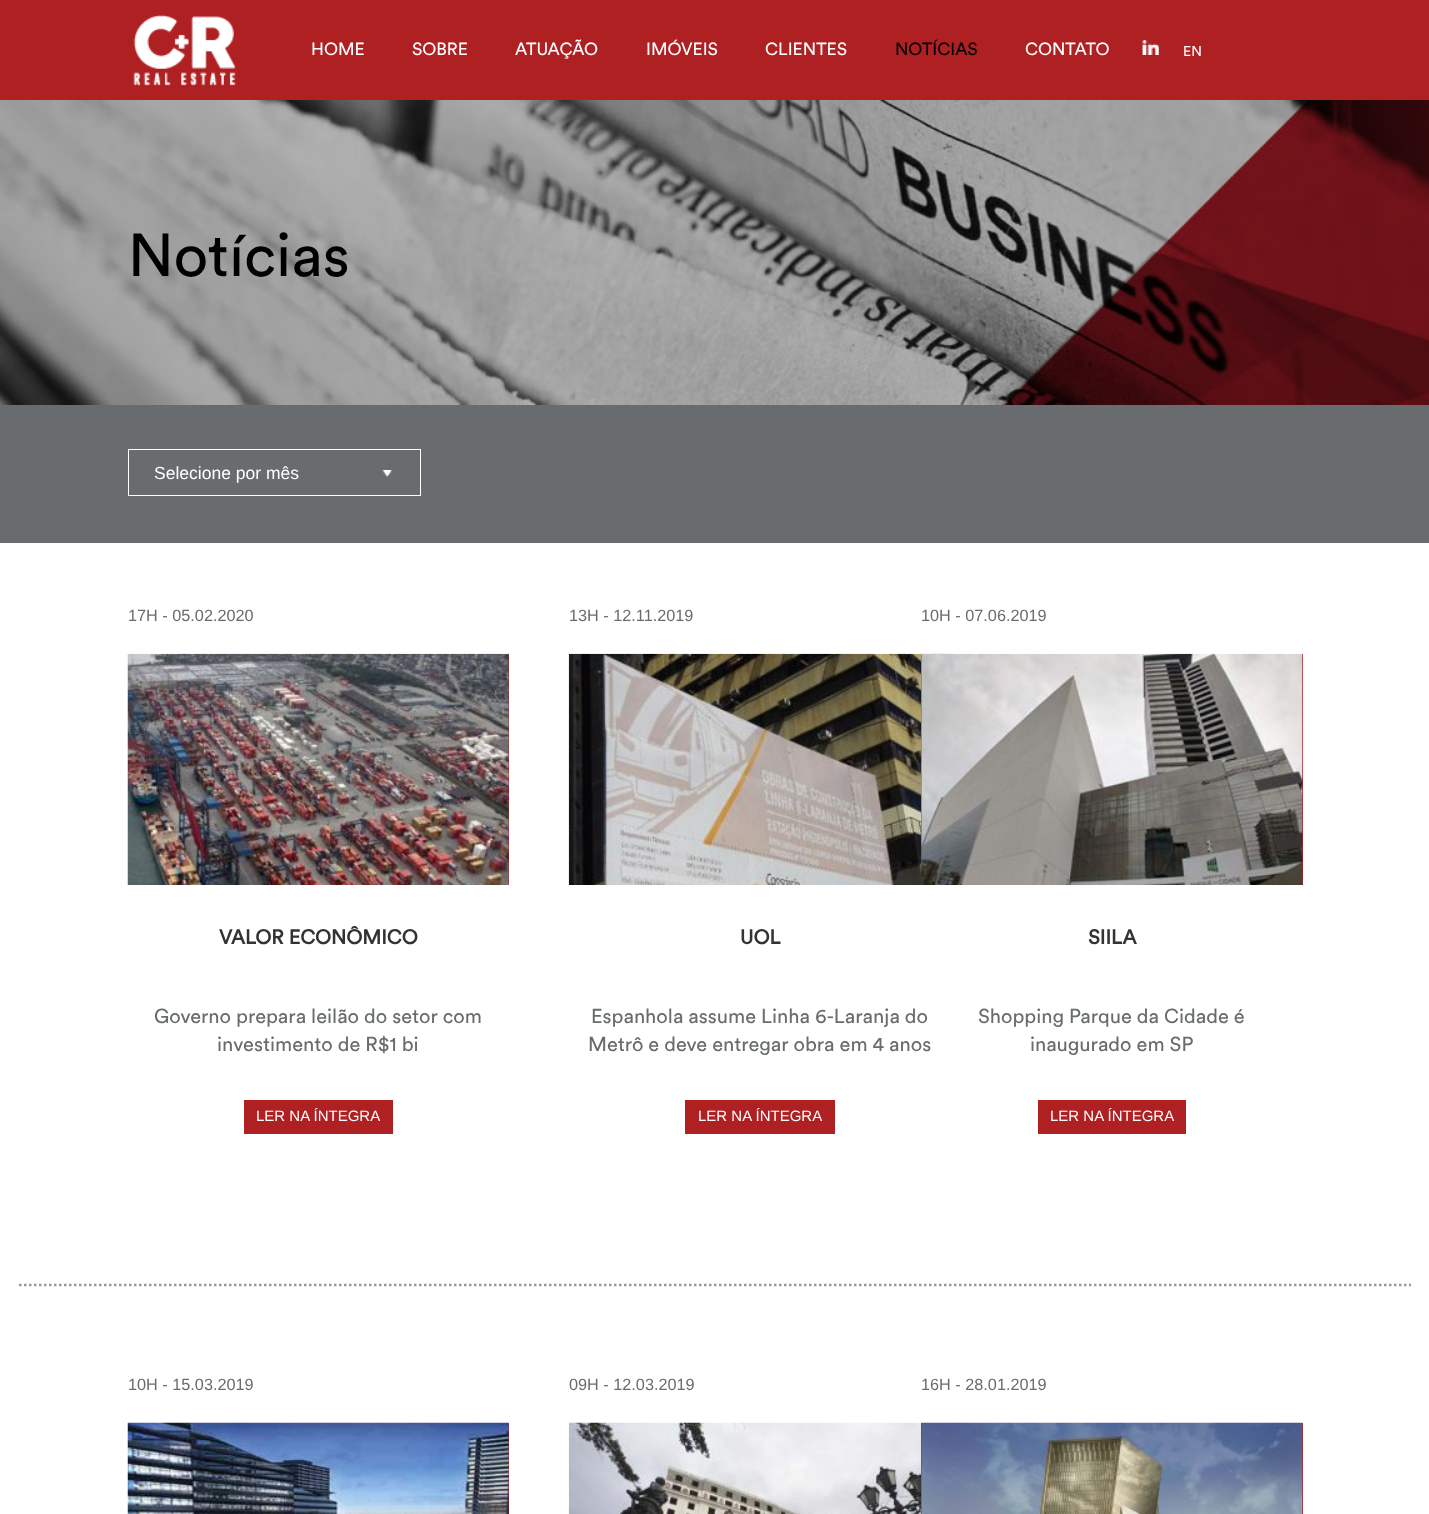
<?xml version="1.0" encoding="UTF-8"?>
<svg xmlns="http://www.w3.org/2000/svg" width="1429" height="1514">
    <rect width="100%" height="100%" fill="#FFFFFF"/>
    <rect x="0" y="0" width="1429" height="100" fill="#AF2023"/>
    <image x="133" y="15" width="103" height="71" href="img_01.png"/>
    <text x="311" y="55" font-family="Circular" font-size="17.5" fill="#FFFFFF">HOME</text>
    <text x="412" y="55" font-family="Circular" font-size="17.5" fill="#FFFFFF">SOBRE</text>
    <text x="515" y="55" font-family="Circular" font-size="17.5" fill="#FFFFFF">ATUAÇÃO</text>
    <text x="646" y="55" font-family="Circular" font-size="17.5" fill="#FFFFFF">IMÓVEIS</text>
    <text x="765" y="55" font-family="Circular" font-size="17.5" fill="#FFFFFF">CLIENTES</text>
    <text x="895" y="55" font-family="Circular" font-size="17.5" fill="#000000">NOTÍCIAS</text>
    <text x="1025" y="55" font-family="Circular" font-size="17.5" fill="#FFFFFF">CONTATO</text>
    <image x="1142" y="40" width="17" height="15" href="img_02.png"/>
    <text x="1183" y="56" font-family="Circular" font-size="14" fill="#FFFFFF">EN</text>
    <image x="0" y="100" width="1429" height="305" href="img_03.png"/>
    <text x="128" y="276" font-family="Circular" font-size="60" fill="#000000">Notícias</text>
    <rect x="0" y="405" width="1429" height="138" fill="#686C6E"/>
    <image x="382" y="470" width="10" height="7" href="img_04.png"/>
    <rect x="128.5" y="449.5" width="292" height="46" fill="none" stroke="#FFFFFF"/>
    <text x="154" y="479" font-family="Liberation Sans" font-size="17.5" fill="#FFFFFF">Selecione por mês</text>
    <text x="128" y="621" font-family="Liberation Sans" font-size="16.25" fill="#686C6E">17H - 05.02.2020</text>
    <rect x="508" y="654" width="1" height="231" fill="#AF2023"/>
    <image x="127" y="653" width="382" height="232" href="img_05.png"/>
    <text x="219" y="944" font-family="Circular" font-size="20" font-weight="700" fill="#333333">VALOR ECONÔMICO</text>
    <text x="154" y="1023" font-family="Circular" font-size="20" fill="#686C6E">Governo prepara leilão do setor com</text>
    <text x="217" y="1051" font-family="Circular" font-size="20" fill="#686C6E">investimento de R$1 bi</text>
    <rect x="244" y="1100" width="149" height="34" fill="#AF2023"/>
    <text x="256" y="1121" font-family="Liberation Sans" font-size="15" fill="#FFFFFF">LER NA ÍNTEGRA</text>
    <text x="569" y="621" font-family="Liberation Sans" font-size="16.25" fill="#686C6E">13H - 12.11.2019</text>
    <image x="568" y="653" width="382" height="232" href="img_06.png"/>
    <text x="740" y="944" font-family="Circular" font-size="20" font-weight="700" fill="#333333">UOL</text>
    <text x="591" y="1023" font-family="Circular" font-size="20" fill="#686C6E">Espanhola assume Linha 6-Laranja do</text>
    <text x="588" y="1051" font-family="Circular" font-size="20" fill="#686C6E">Metrô e deve entregar obra em 4 anos</text>
    <rect x="685" y="1100" width="150" height="34" fill="#AF2023"/>
    <text x="698" y="1121" font-family="Liberation Sans" font-size="15" fill="#FFFFFF">LER NA ÍNTEGRA</text>
    <text x="921" y="621" font-family="Liberation Sans" font-size="16.25" fill="#686C6E">10H - 07.06.2019</text>
    <rect x="921" y="654" width="382" height="231" fill="#AF2023"/>
    <image x="921" y="653" width="382" height="232" href="img_07.png"/>
    <text x="1088" y="944" font-family="Circular" font-size="20" font-weight="700" fill="#333333">SIILA</text>
    <text x="978" y="1023" font-family="Circular" font-size="20" fill="#686C6E">Shopping Parque da Cidade é</text>
    <text x="1030" y="1051" font-family="Circular" font-size="20" fill="#686C6E">inaugurado em SP</text>
    <rect x="1038" y="1100" width="148" height="34" fill="#AF2023"/>
    <text x="1050" y="1121" font-family="Liberation Sans" font-size="15" fill="#FFFFFF">LER NA ÍNTEGRA</text>
    <path d="M 19 1285 H 1411" fill="none" stroke="#999999" stroke-width="2.5" stroke-dasharray="2.5 2.5"/>
    <text x="128" y="1390" font-family="Liberation Sans" font-size="16.25" fill="#686C6E">10H - 15.03.2019</text>
    <rect x="508" y="1423" width="1" height="91" fill="#AF2023"/>
    <image x="127" y="1422" width="382" height="92" href="img_08.png"/>
    <text x="569" y="1390" font-family="Liberation Sans" font-size="16.25" fill="#686C6E">09H - 12.03.2019</text>
    <image x="568" y="1422" width="382" height="92" href="img_09.png"/>
    <text x="921" y="1390" font-family="Liberation Sans" font-size="16.25" fill="#686C6E">16H - 28.01.2019</text>
    <rect x="921" y="1423" width="382" height="91" fill="#AF2023"/>
    <image x="921" y="1422" width="382" height="92" href="img_10.png"/>
</svg>
